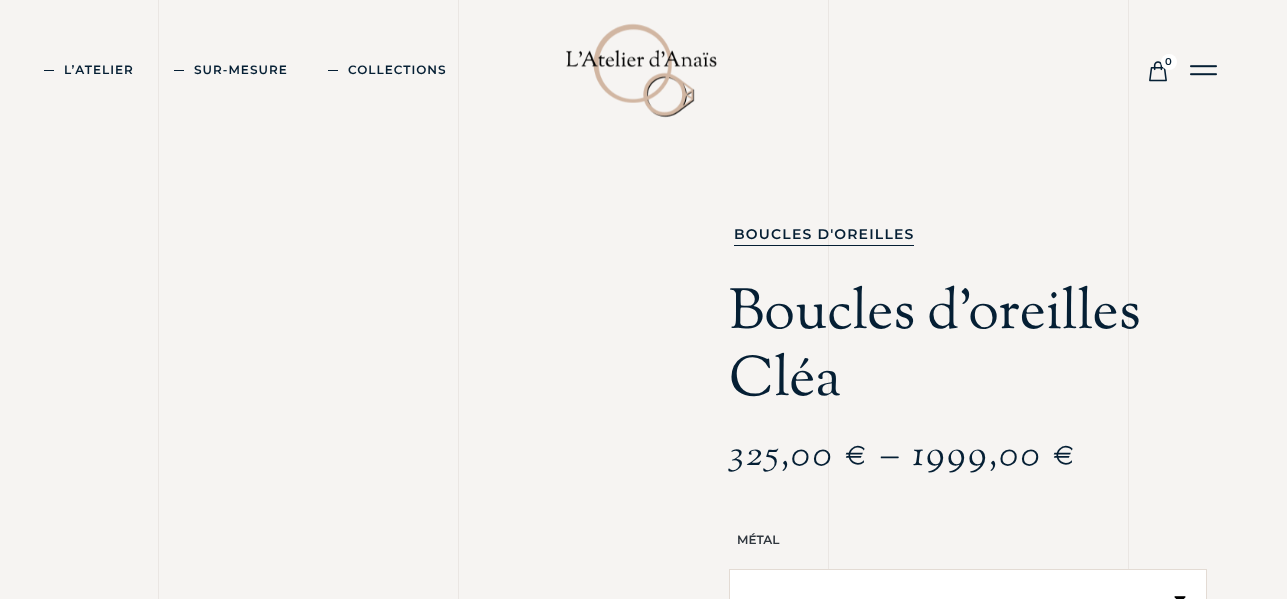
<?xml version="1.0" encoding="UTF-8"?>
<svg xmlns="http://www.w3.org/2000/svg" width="1287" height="599">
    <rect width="100%" height="100%" fill="#F6F4F2"/>
    <image x="158" y="0" width="971" height="599" href="img_01.png"/>
    <image x="566" y="23" width="151" height="95" href="img_02.png"/>
    <image x="1149" y="61" width="18" height="21" href="img_03.png"/>
    <circle cx="1169" cy="62" r="8" fill="#FFFFFF"/>
    <text x="1165" y="65" font-family="Montserrat" font-size="10" font-weight="600" fill="#051F34">0</text>
    <image x="1190" y="65" width="27" height="11" href="img_04.png"/>
    <rect x="44" y="70" width="10" height="1" fill="#051F34"/>
    <text x="64" y="74" font-family="Montserrat" font-size="12" font-weight="600" letter-spacing="1" fill="#051F34">L’ATELIER</text>
    <rect x="174" y="70" width="10" height="1" fill="#051F34"/>
    <text x="194" y="74" font-family="Montserrat" font-size="12" font-weight="600" letter-spacing="1" fill="#051F34">SUR-MESURE</text>
    <rect x="328" y="70" width="10" height="1" fill="#051F34"/>
    <text x="348" y="74" font-family="Montserrat" font-size="12" font-weight="600" letter-spacing="1" fill="#051F34">COLLECTIONS</text>
    <rect x="734" y="245" width="180" height="1" fill="#051F34"/>
    <text x="734" y="239" font-family="Montserrat" font-size="14" font-weight="600" letter-spacing="1.2" fill="#051F34">BOUCLES D'OREILLES</text>
    <text font-family="Sorts Mill Goudy" font-size="56" fill="#051F34">
        <tspan x="729" y="328">Boucles d’oreilles</tspan>
        <tspan x="729" y="395">Cléa</tspan>
    </text>
    <text x="729" y="465" font-family="Sorts Mill Goudy" font-size="36" font-style="italic" letter-spacing="3" fill="#051F34">325,00 € – 1999,00 €</text>
    <text x="737" y="544" font-family="Montserrat" font-size="12" font-weight="600" fill="#30373E">MÉTAL</text>
    <rect x="730" y="570" width="476" height="29" fill="#FFFFFF"/>
    <image x="1174" y="596" width="12" height="3" href="img_05.png"/>
    <rect x="729.5" y="569.5" width="477" height="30" fill="none" stroke="#E3DBD4"/>
</svg>
